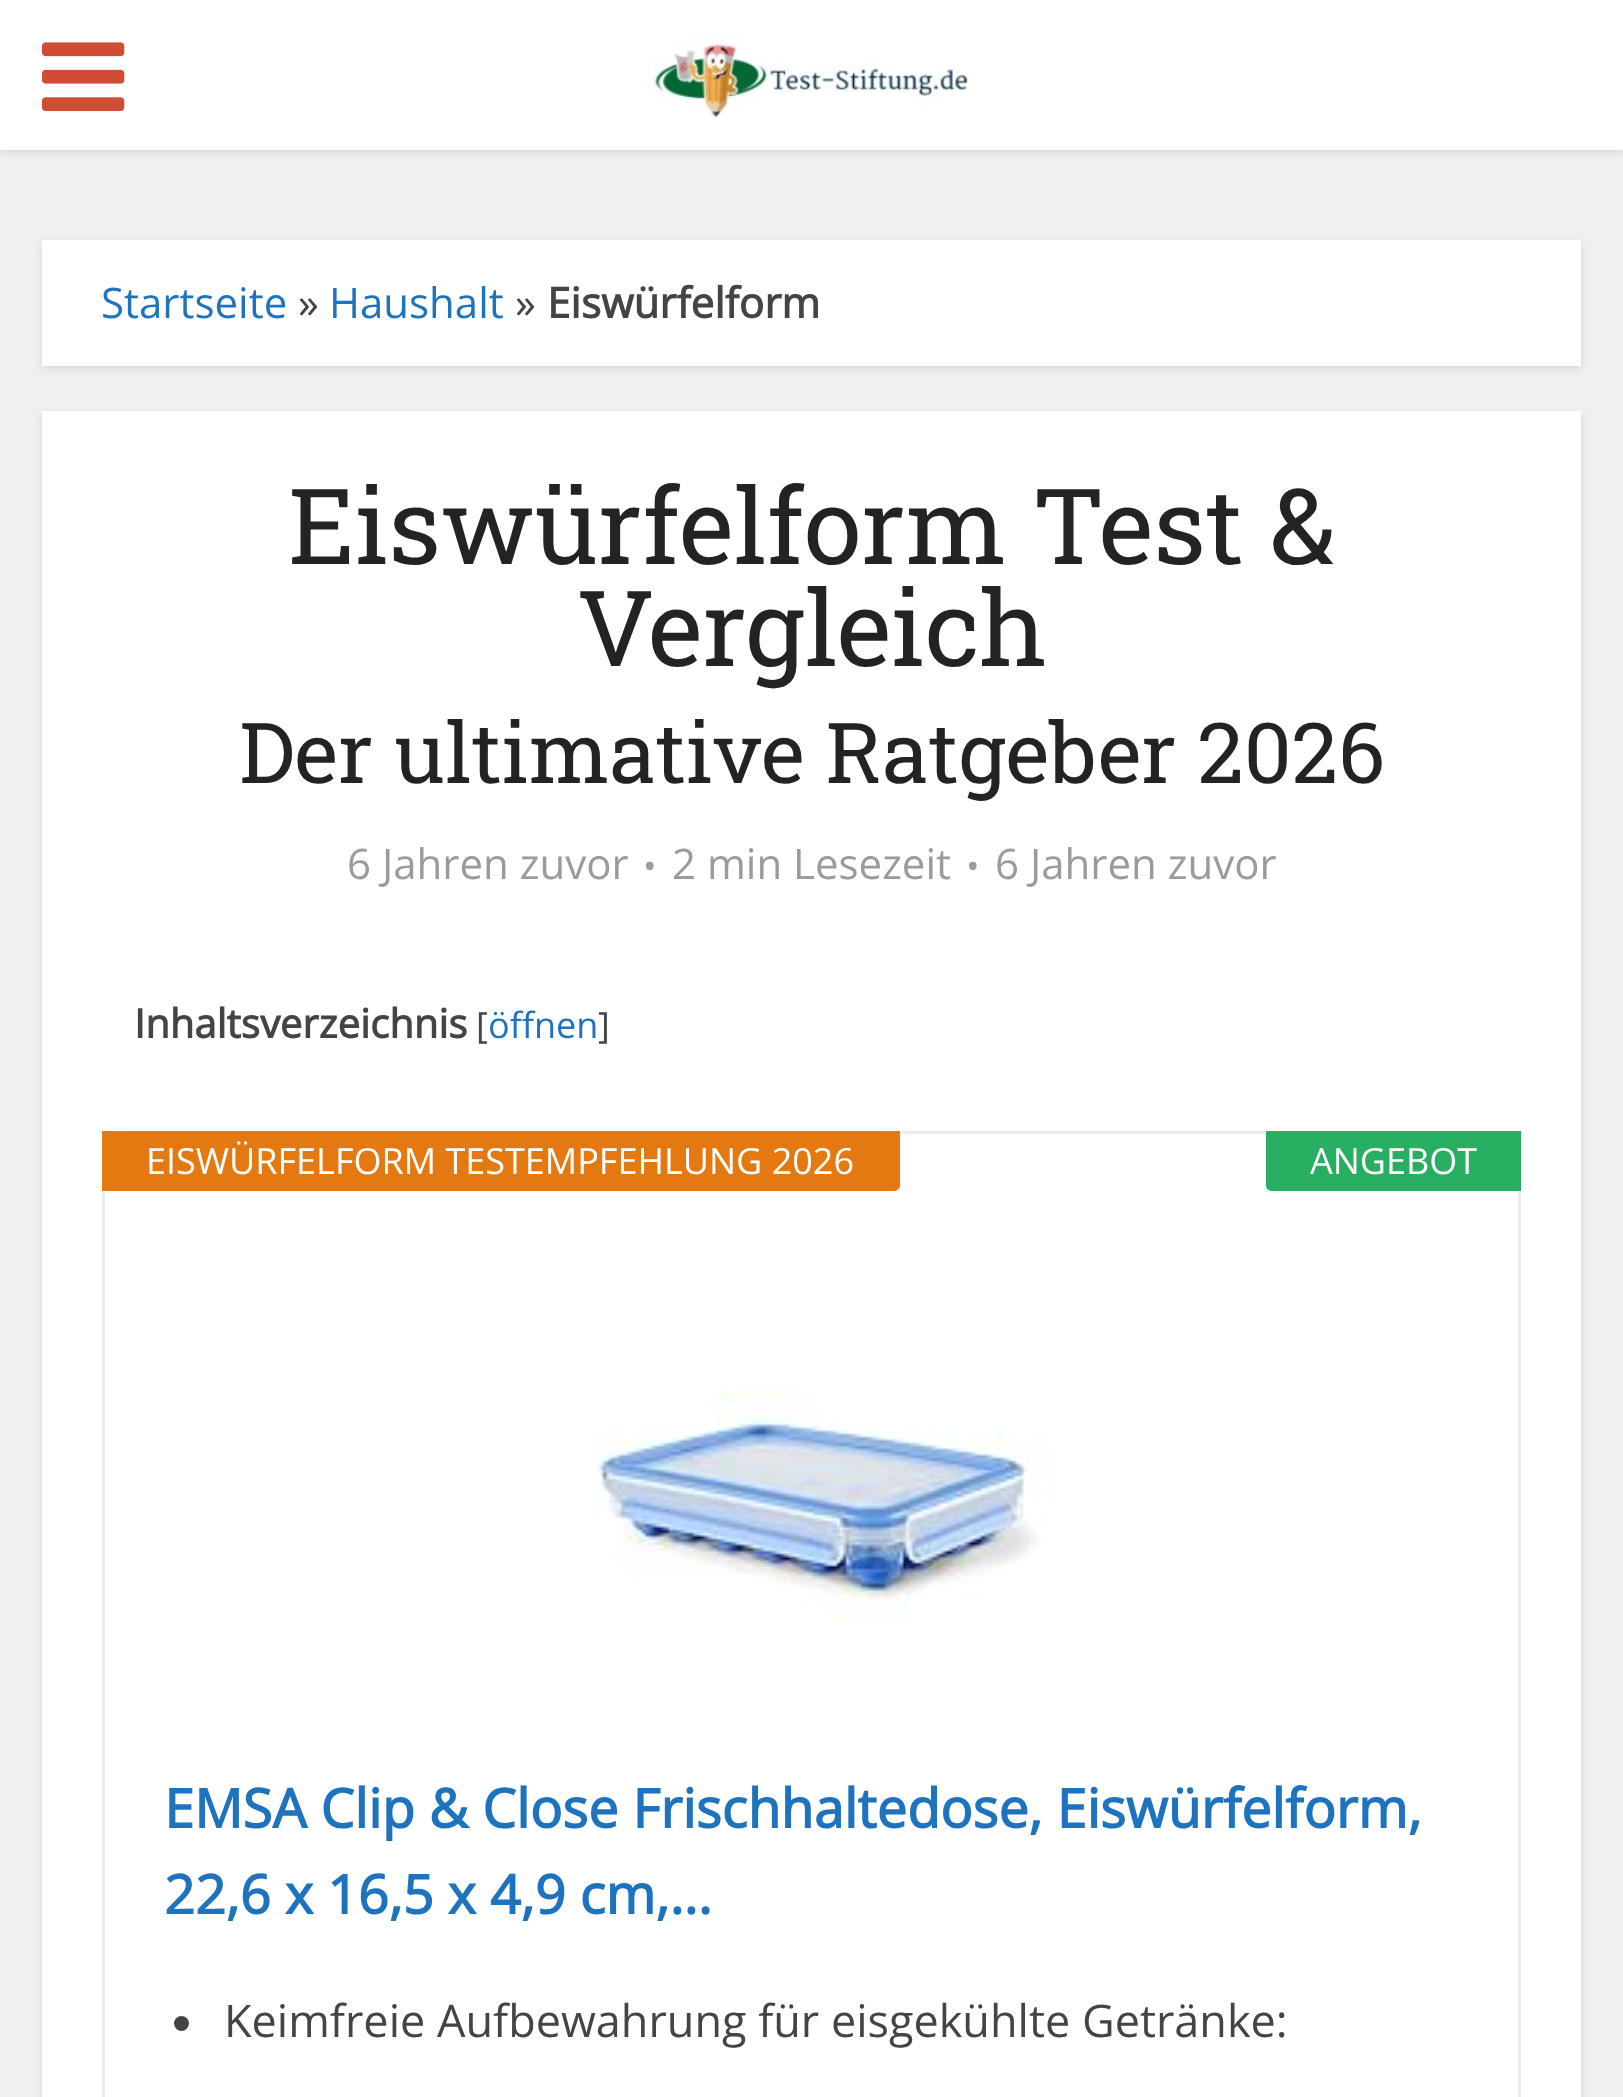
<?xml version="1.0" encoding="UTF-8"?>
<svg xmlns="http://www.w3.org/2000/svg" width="1623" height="2097">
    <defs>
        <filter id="blur1" x="-50%" y="-200%" width="200%" height="500%"><feGaussianBlur stdDeviation="4.5"/></filter>
    </defs>
    <rect width="100%" height="100%" fill="#F0F0F0"/>
    <rect x="0" y="3" width="1623" height="150" fill="#000000" fill-opacity="0.1" filter="url(#blur1)"/>
    <rect x="0" y="0" width="1623" height="150" fill="#FFFFFF"/>
    <image x="42" y="42" width="83" height="69" href="img_01.png"/>
    <image x="654" y="36" width="315" height="84" href="img_02.png"/>
    <rect x="42" y="243" width="1539" height="126" fill="#000000" fill-opacity="0.1" filter="url(#blur1)"/>
    <rect x="42" y="240" width="1539" height="126" fill="#FFFFFF"/>
    <text x="101" y="318" font-family="Open Sans" font-size="42" fill="#1E73BE">Startseite</text>
    <text x="298" y="318" font-family="Open Sans" font-size="42" fill="#444444">»</text>
    <text x="329" y="318" font-family="Open Sans" font-size="42" fill="#1E73BE">Haushalt</text>
    <text x="515" y="318" font-family="Open Sans" font-size="42" fill="#444444">»</text>
    <text x="547" y="318" font-family="Open Sans" font-size="42" font-weight="700" fill="#444444">Eiswürfelform</text>
    <rect x="42" y="414" width="1539" height="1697" fill="#000000" fill-opacity="0.1" filter="url(#blur1)"/>
    <rect x="42" y="411" width="1539" height="1686" fill="#FFFFFF"/>
    <text x="288" y="564" font-family="Roboto Slab" font-size="105" fill="#232323">Eiswürfelform Test &amp;</text>
    <text x="577" y="666" font-family="Roboto Slab" font-size="105" fill="#232323">Vergleich</text>
    <text x="239" y="783" font-family="Roboto Slab" font-size="84" fill="#232323">Der ultimative Ratgeber 2026</text>
    <text x="347" y="879" font-family="Open Sans" font-size="42" fill="#9B9B9B">6 Jahren zuvor</text>
    <text x="643" y="879" font-family="Open Sans" font-size="36" fill="#9B9B9B">•</text>
    <text x="672" y="879" font-family="Open Sans" font-size="42" fill="#9B9B9B">2 min Lesezeit</text>
    <text x="966" y="879" font-family="Open Sans" font-size="36" fill="#9B9B9B">•</text>
    <text x="995" y="879" font-family="Open Sans" font-size="42" fill="#9B9B9B">6 Jahren zuvor</text>
    <text x="134" y="1038" font-family="Open Sans" font-size="40" font-weight="700" fill="#444444">Inhaltsverzeichnis</text>
    <text x="476" y="1038" font-family="Open Sans" font-size="36" fill="#444444">[</text>
    <text x="488" y="1038" font-family="Open Sans" font-size="36" fill="#1E73BE">öffnen</text>
    <text x="598" y="1038" font-family="Open Sans" font-size="36" fill="#444444">]</text>
    <rect x="103.5" y="1132.5" width="1416" height="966" fill="none" stroke="#ECECEC" stroke-width="3"/>
    <path d="M 102 1131 H 900 V 1185 C 900 1188.5 897.5 1191 894 1191 H 102 Z" fill="#E47911"/>
    <text x="146" y="1174" font-family="Open Sans" font-size="36" fill="#FFFFFF">EISWÜRFELFORM TESTEMPFEHLUNG 2026</text>
    <path d="M 1266 1131 H 1521 V 1191 H 1272 C 1268.5 1191 1266 1188.5 1266 1185 Z" fill="#27AE60"/>
    <text x="1310" y="1174" font-family="Open Sans" font-size="36" fill="#FFFFFF">ANGEBOT</text>
    <image x="593" y="1388" width="460" height="236" href="img_03.png"/>
    <text font-family="Open Sans" font-size="54" font-weight="700" fill="#1E73BE">
        <tspan x="164" y="1828">EMSA Clip &amp; Close Frischhaltedose, Eiswürfelform,</tspan>
        <tspan x="164" y="1914">22,6 x 16,5 x 4,9 cm,...</tspan>
    </text>
    <circle cx="181.5" cy="2023.5" r="7.5" fill="#444444"/>
    <text x="224" y="2037" font-family="Open Sans" font-size="45" fill="#444444">Keimfreie Aufbewahrung für eisgekühlte Getränke:</text>
</svg>
